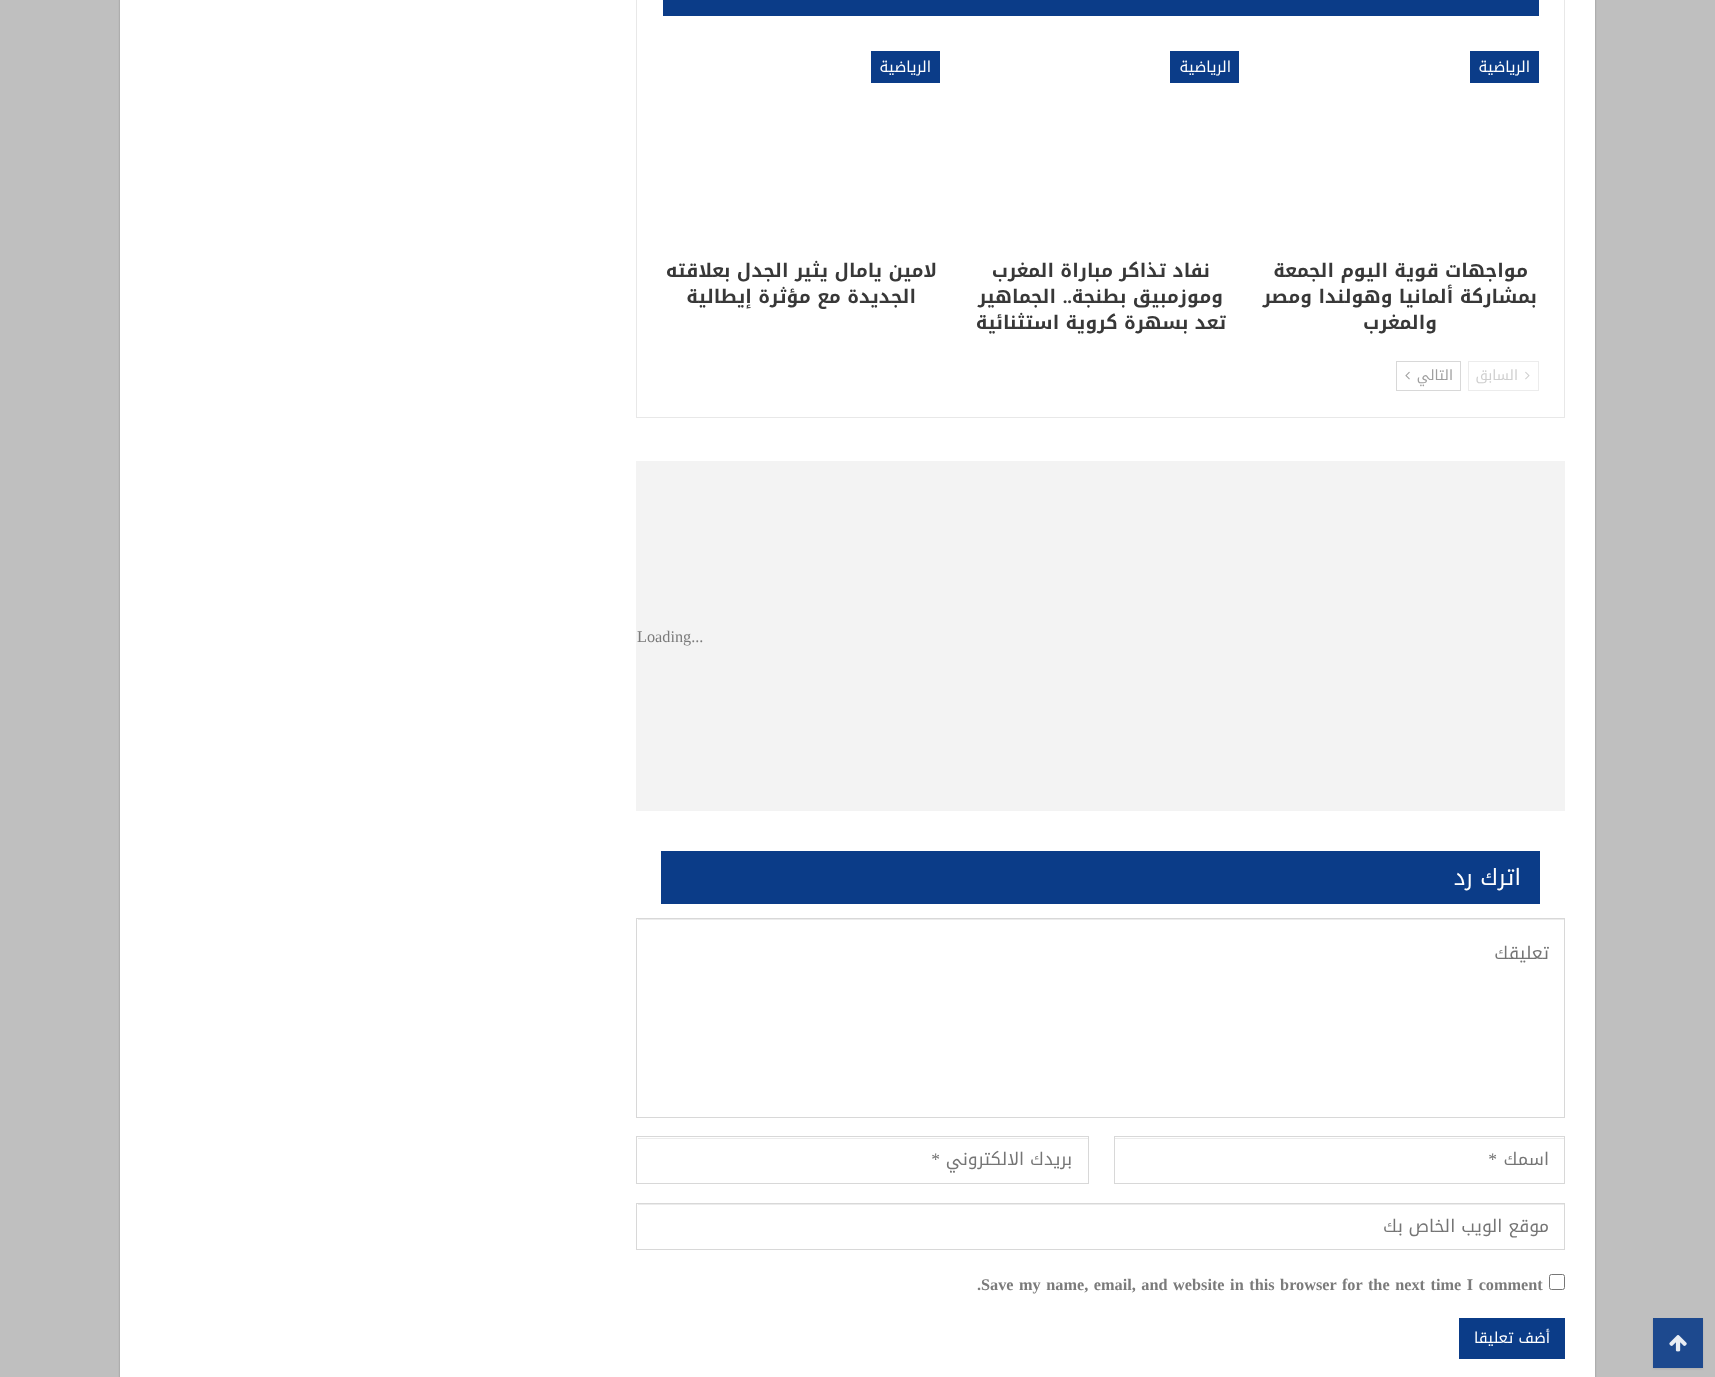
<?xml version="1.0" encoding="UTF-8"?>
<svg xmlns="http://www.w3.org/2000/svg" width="1715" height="1377">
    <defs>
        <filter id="blur1" x="-50%" y="-200%" width="200%" height="500%"><feGaussianBlur stdDeviation="1"/></filter>
    </defs>
    <rect width="100%" height="100%" fill="#BFBFBF"/>
    <rect x="120" y="-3" width="1475" height="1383" fill="#000000" fill-opacity="0.27" filter="url(#blur1)"/>
    <rect x="120" y="0" width="1475" height="1377" fill="#FFFFFF"/>
    <rect x="1653" y="1319" width="50" height="50" fill="#131313" fill-opacity="0.09" filter="url(#blur1)"/>
    <rect x="1653" y="1318" width="50" height="50" fill="#1D498E"/>
    <image x="1669" y="1335" width="18" height="17" href="img_01.png"/>
    <rect x="636.5" y="-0.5" width="928" height="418" fill="none" stroke="#E8E8E8"/>
    <rect x="663" y="0" width="876" height="16" fill="#0B3C88"/>
    <rect x="1470" y="51" width="69" height="32" fill="#0B3C88"/>
    <text x="1530" y="72" font-family="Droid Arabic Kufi" font-size="15" direction="rtl" fill="#FFFFFF">الرياضية</text>
    <text x="1528" y="277" font-family="Droid Arabic Kufi" font-size="18.75" font-weight="700" direction="rtl" fill="#383838">مواجهات قوية اليوم الجمعة</text>
    <text x="1537" y="303" font-family="Droid Arabic Kufi" font-size="18.75" font-weight="700" direction="rtl" fill="#383838">بمشاركة ألمانيا وهولندا ومصر</text>
    <text x="1437" y="329" font-family="Droid Arabic Kufi" font-size="18.75" font-weight="700" direction="rtl" fill="#383838">والمغرب</text>
    <rect x="1170" y="51" width="69" height="32" fill="#0B3C88"/>
    <text x="1231" y="72" font-family="Droid Arabic Kufi" font-size="15" direction="rtl" fill="#FFFFFF">الرياضية</text>
    <text x="1210" y="277" font-family="Droid Arabic Kufi" font-size="18.75" font-weight="700" direction="rtl" fill="#383838">نفاد تذاكر مباراة المغرب</text>
    <text x="1223" y="303" font-family="Droid Arabic Kufi" font-size="18.75" font-weight="700" direction="rtl" fill="#383838">وموزمبيق بطنجة</text>
    <text x="1072" y="303" font-family="Liberation Serif" font-size="18.75" font-weight="700" direction="rtl" fill="#383838">..</text>
    <text x="1056" y="303" font-family="Droid Arabic Kufi" font-size="18.75" font-weight="700" direction="rtl" fill="#383838">الجماهير</text>
    <text x="1226" y="329" font-family="Droid Arabic Kufi" font-size="18.75" font-weight="700" direction="rtl" fill="#383838">تعد بسهرة كروية استثنائية</text>
    <rect x="871" y="51" width="69" height="32" fill="#0B3C88"/>
    <text x="931" y="72" font-family="Droid Arabic Kufi" font-size="15" direction="rtl" fill="#FFFFFF">الرياضية</text>
    <text x="937" y="277" font-family="Droid Arabic Kufi" font-size="18.75" font-weight="700" direction="rtl" fill="#383838">لامين يامال يثير الجدل بعلاقته</text>
    <text x="916" y="303" font-family="Droid Arabic Kufi" font-size="18.75" font-weight="700" direction="rtl" fill="#383838">الجديدة مع مؤثرة إيطالية</text>
    <rect x="1468.5" y="361.5" width="70" height="29" fill="none" stroke="#ECECEC"/>
    <image x="1525" y="371" width="5" height="9" href="img_02.png"/>
    <text x="1518" y="380" font-family="Droid Arabic Kufi" font-size="14" direction="rtl" fill="#CFCFCF">السابق</text>
    <rect x="1396.5" y="361.5" width="64" height="29" fill="none" stroke="#D8D8D8"/>
    <text x="1453" y="380" font-family="Droid Arabic Kufi" font-size="14" direction="rtl" fill="#9E9E9E">التالي</text>
    <image x="1405" y="371" width="5" height="9" href="img_03.png"/>
    <rect x="636" y="461" width="929" height="350" fill="#F3F3F3"/>
    <text x="637" y="642" font-family="Liberation Serif" font-size="16.25" fill="#7B7B7B">Loading...</text>
    <rect x="661" y="851" width="879" height="53" fill="#0B3C88"/>
    <text x="1521" y="885" font-family="Droid Arabic Kufi" font-size="22.5" direction="rtl" fill="#FFFFFF">اترك رد</text>
    <rect x="638" y="919" width="926" height="1" fill="#ECECEC"/>
    <rect x="636.5" y="918.5" width="928" height="199" fill="none" stroke="#D8D8D8"/>
    <text x="1549" y="959" font-family="Droid Arabic Kufi" font-size="17.5" direction="rtl" fill="#757575">تعليقك</text>
    <rect x="1115" y="1138" width="449" height="1" fill="#ECECEC"/>
    <rect x="1114.5" y="1136.5" width="450" height="47" fill="none" stroke="#D8D8D8"/>
    <text x="1549" y="1165" font-family="Droid Arabic Kufi" font-size="17.5" direction="rtl" fill="#757575">اسمك</text>
    <text x="1497" y="1165" font-family="Liberation Serif" font-size="17.5" direction="rtl" fill="#757575">*</text>
    <rect x="638" y="1138" width="450" height="1" fill="#ECECEC"/>
    <rect x="636.5" y="1136.5" width="452" height="47" fill="none" stroke="#D8D8D8"/>
    <text x="1072" y="1165" font-family="Droid Arabic Kufi" font-size="17.5" direction="rtl" fill="#757575">بريدك الالكتروني</text>
    <text x="940" y="1165" font-family="Liberation Serif" font-size="17.5" direction="rtl" fill="#757575">*</text>
    <rect x="638" y="1204" width="926" height="1" fill="#ECECEC"/>
    <rect x="636.5" y="1203.5" width="928" height="46" fill="none" stroke="#D8D8D8"/>
    <text x="1549" y="1232" font-family="Droid Arabic Kufi" font-size="17.5" direction="rtl" fill="#757575">موقع الويب الخاص بك</text>
    <rect x="1549.5" y="1274.5" width="15" height="15" rx="2" fill="none" stroke="#767676"/>
    <text x="981" y="1290" word-spacing="1.5" font-family="Liberation Serif" font-size="16.25" font-weight="700" fill="#7B7B7B">Save my name, email, and website in this browser for the next time I comment</text>
    <text x="977" y="1290" font-family="Liberation Serif" font-size="16.25" font-weight="700" fill="#7B7B7B">.</text>
    <rect x="1459" y="1318" width="106" height="41" fill="#0B3C88"/>
    <text x="1550" y="1343" font-family="Droid Arabic Kufi" font-size="15" direction="rtl" fill="#FFFFFF">أضف تعليقا</text>
</svg>
